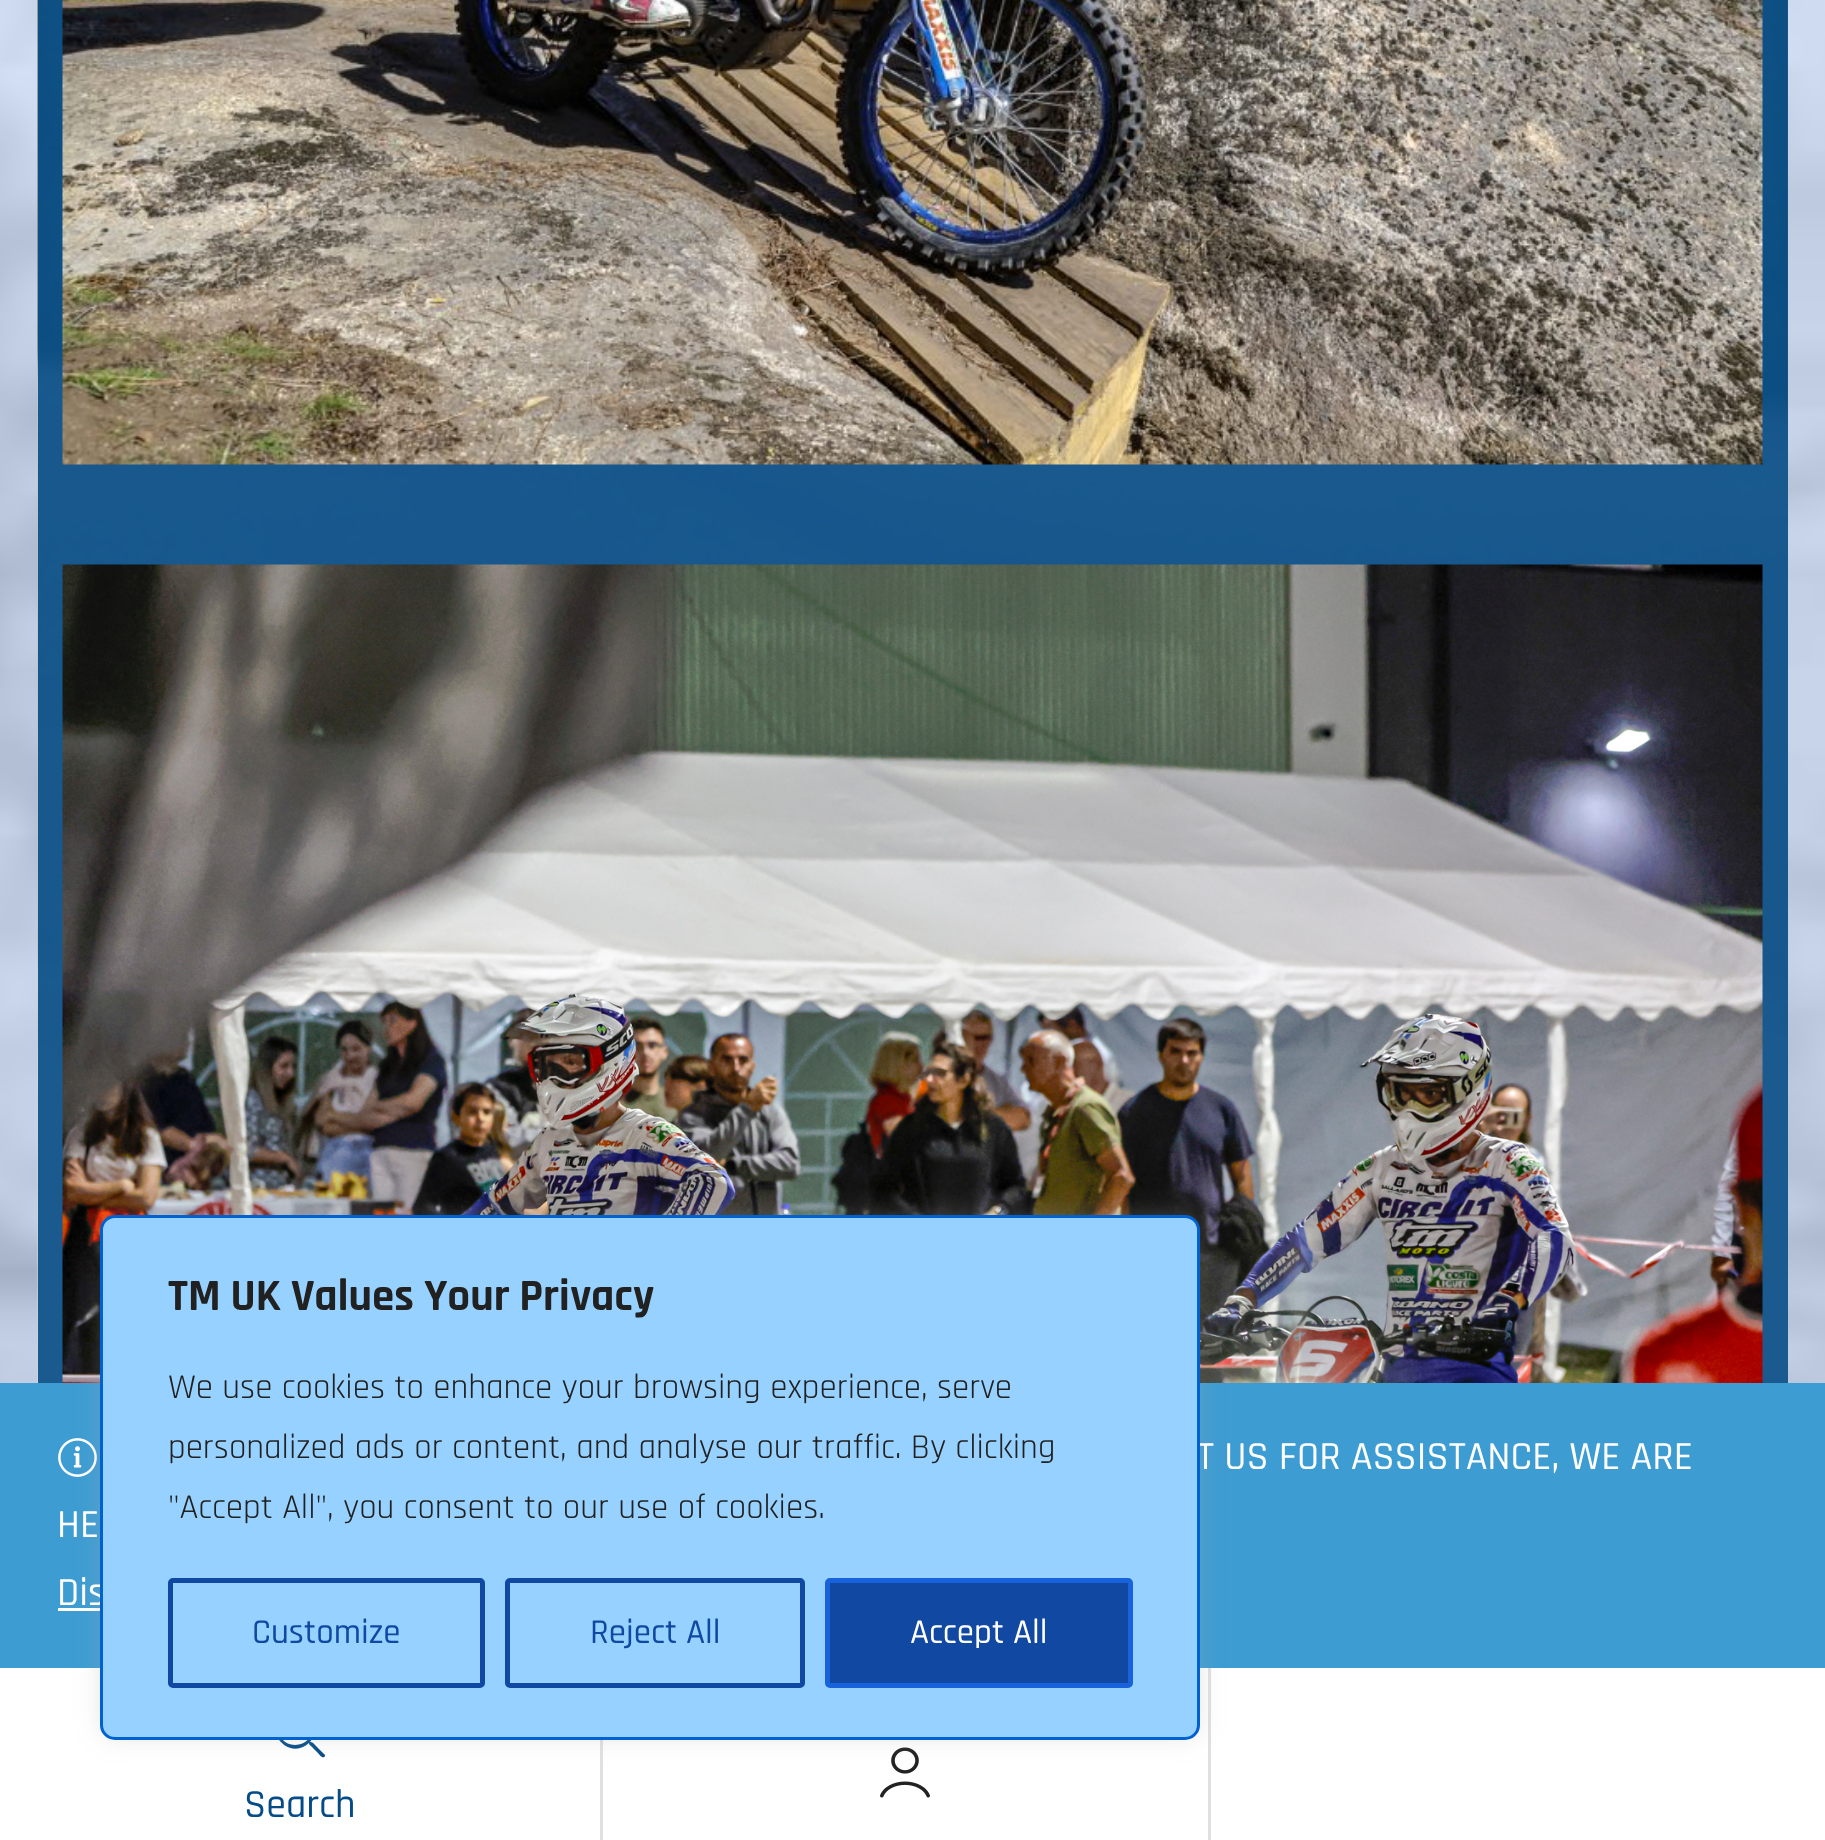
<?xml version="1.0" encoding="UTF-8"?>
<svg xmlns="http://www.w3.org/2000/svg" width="1825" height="1840">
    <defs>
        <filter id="blur1" x="-50%" y="-200%" width="200%" height="500%"><feGaussianBlur stdDeviation="12.5"/></filter>
    </defs>
    <rect width="100%" height="100%" fill="#FFFFFF"/>
    <image x="0" y="0" width="1825" height="1383" href="img_01.png"/>
    <rect x="0" y="1383" width="1825" height="285" fill="#3D9CD2"/>
    <image x="58" y="1438" width="39" height="39" href="img_02.png"/>
    <rect x="58" y="1608" width="42" height="3" fill="#FFFFFF"/>
    <image x="37" y="0" width="1751" height="1383" href="img_03.png"/>
    <image x="62" y="564" width="1701" height="819" href="img_05.png"/>
    <rect x="600" y="1740" width="3" height="100" fill="#E0E0E0"/>
    <path d="M 325 1755 L 316 1746 C 314 1744 313 1742 310 1742 C 328 1722 299 1695 281 1713 C 262 1732 290 1761 309 1743 C 309 1745 310 1745 312 1747 L 318 1753 C 319 1754 323 1760 325 1756 Z M 295 1745 C 273 1745 273 1711 295 1711 C 318 1711 318 1745 295 1745 Z" fill="#054C87"/>
    <rect x="1208" y="1668" width="3" height="172" fill="#E0E0E0"/>
    <image x="880" y="1747" width="50" height="51" href="img_06.png"/>
    <rect x="100" y="1213" width="1100" height="525" rx="15" fill="#ACABAB" fill-opacity="0.3" filter="url(#blur1)"/>
    <text x="1197" y="1469" font-family="Rajdhani" font-size="40" font-weight="500" fill="#FFFFFF">T US FOR ASSISTANCE, WE ARE</text>
    <text x="57" y="1605" font-family="Rajdhani" font-size="40" font-weight="500" fill="#FFFFFF">Dis</text>
    <rect x="101.5" y="1216.5" width="1097" height="522" rx="13.5" fill="#97D1FF" stroke="#0161D1" stroke-width="3"/>
    <text x="168" y="1310" font-family="Rajdhani" font-size="45" font-weight="700" fill="#212121">TM UK Values Your Privacy</text>
    <text font-family="Rajdhani" font-size="35" fill="#212121">
        <tspan x="168" y="1398">We use cookies to enhance your browsing experience, serve</tspan>
        <tspan x="168" y="1458">personalized ads or content, and analyse our traffic. By clicking</tspan>
        <tspan x="168" y="1518">"Accept All", you consent to our use of cookies.</tspan>
    </text>
    <rect x="170.5" y="1580.5" width="312" height="105" rx="2.5" fill="none" stroke="#1048A2" stroke-width="5"/>
    <text x="252" y="1643" font-family="Rajdhani" font-size="35" font-weight="500" fill="#1048A2">Customize</text>
    <rect x="507.5" y="1580.5" width="295" height="105" rx="2.5" fill="none" stroke="#1048A2" stroke-width="5"/>
    <text x="590" y="1643" font-family="Rajdhani" font-size="35" font-weight="500" fill="#1048A2">Reject All</text>
    <rect x="827.5" y="1580.5" width="303" height="105" rx="2.5" fill="#1048A2" stroke="#1863DC" stroke-width="5"/>
    <text x="910" y="1643" font-family="Rajdhani" font-size="35" font-weight="500" fill="#FFFFFF">Accept All</text>
    <text x="57" y="1537" font-family="Rajdhani" font-size="40" font-weight="500" fill="#FFFFFF">HE</text>
    <image x="62" y="0" width="1701" height="465" href="img_04.png"/>
    <text x="244" y="1817" font-family="Rajdhani" font-size="40" font-weight="500" fill="#054C87">Search</text>
</svg>
